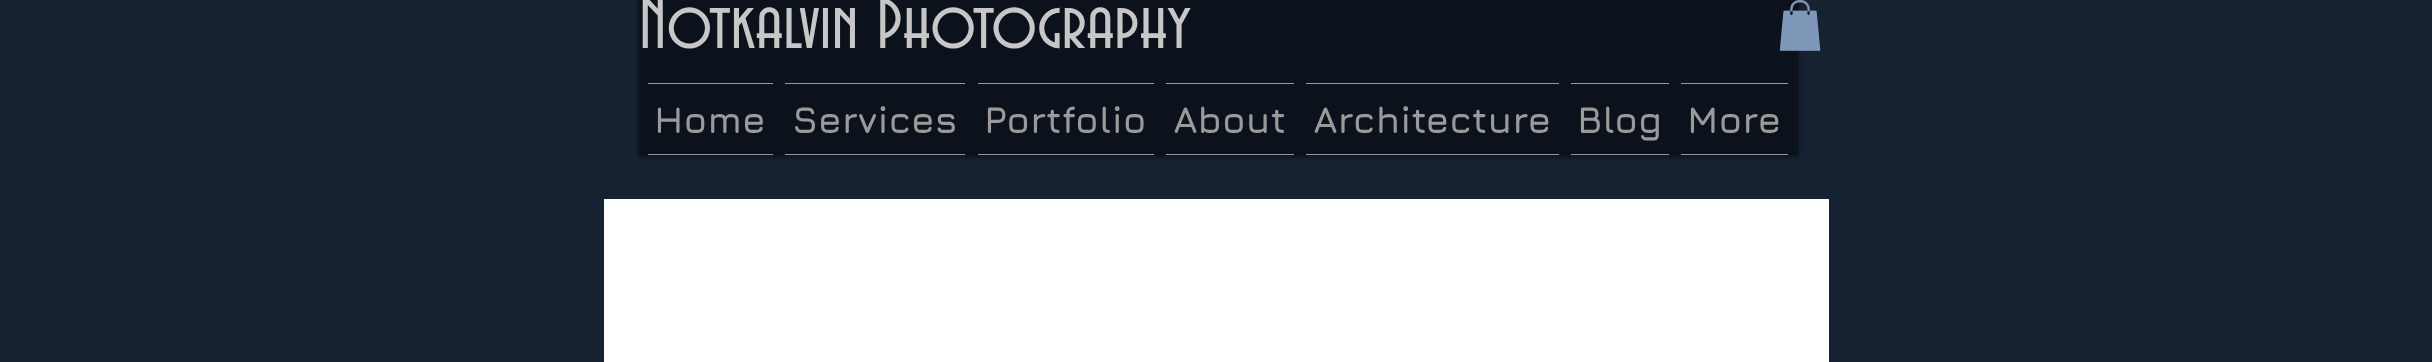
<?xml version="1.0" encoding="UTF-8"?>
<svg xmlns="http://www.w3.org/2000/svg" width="2432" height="362">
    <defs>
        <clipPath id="clip1"><path d="M 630 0 H 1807 V 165 H 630 Z M 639 -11 H 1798 V 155 H 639 Z" clip-rule="evenodd"/></clipPath>
        <filter id="blur1" x="-50%" y="-200%" width="200%" height="500%"><feGaussianBlur stdDeviation="2.5"/></filter>
    </defs>
    <rect width="100%" height="100%" fill="#162131"/>
    <g clip-path="url(#clip1)">
        <rect x="639" y="-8" width="1159" height="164" fill="#000000" fill-opacity="0.6" filter="url(#blur1)"/>
    </g>
    <rect x="639" y="0" width="1159" height="155" fill="#000000" fill-opacity="0.43"/>
    <text x="639" y="48" font-family="'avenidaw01'" font-size="75" fill="#C7C7C7">Notkalvin Photography</text>
    <image x="1779" y="0" width="42" height="51" href="img_01.png"/>
    <rect x="648" y="83" width="125" height="1" fill="#9A9A9A"/>
    <rect x="648" y="154" width="125" height="1" fill="#9A9A9A"/>
    <text x="654" y="133" font-family="Jura" font-size="37.5" font-weight="700" fill="#9A9A9A">Home</text>
    <rect x="785" y="83" width="180" height="1" fill="#9A9A9A"/>
    <rect x="785" y="154" width="180" height="1" fill="#9A9A9A"/>
    <text x="792" y="133" font-family="Jura" font-size="37.5" font-weight="700" fill="#9A9A9A">Services</text>
    <rect x="978" y="83" width="176" height="1" fill="#9A9A9A"/>
    <rect x="978" y="154" width="176" height="1" fill="#9A9A9A"/>
    <text x="984" y="133" font-family="Jura" font-size="37.5" font-weight="700" fill="#9A9A9A">Portfolio</text>
    <rect x="1166" y="83" width="128" height="1" fill="#9A9A9A"/>
    <rect x="1166" y="154" width="128" height="1" fill="#9A9A9A"/>
    <text x="1173" y="133" font-family="Jura" font-size="37.5" font-weight="700" fill="#9A9A9A">About</text>
    <rect x="1306" y="83" width="253" height="1" fill="#9A9A9A"/>
    <rect x="1306" y="154" width="253" height="1" fill="#9A9A9A"/>
    <text x="1313" y="133" font-family="Jura" font-size="37.5" font-weight="700" fill="#9A9A9A">Architecture</text>
    <rect x="1571" y="83" width="98" height="1" fill="#9A9A9A"/>
    <rect x="1571" y="154" width="98" height="1" fill="#9A9A9A"/>
    <text x="1577" y="133" font-family="Jura" font-size="37.5" font-weight="700" fill="#9A9A9A">Blog</text>
    <rect x="1681" y="83" width="107" height="1" fill="#9A9A9A"/>
    <rect x="1681" y="154" width="107" height="1" fill="#9A9A9A"/>
    <text x="1687" y="133" font-family="Jura" font-size="37.5" font-weight="700" fill="#9A9A9A">More</text>
    <rect x="604" y="199" width="1225" height="163" fill="#FFFFFF"/>
</svg>
